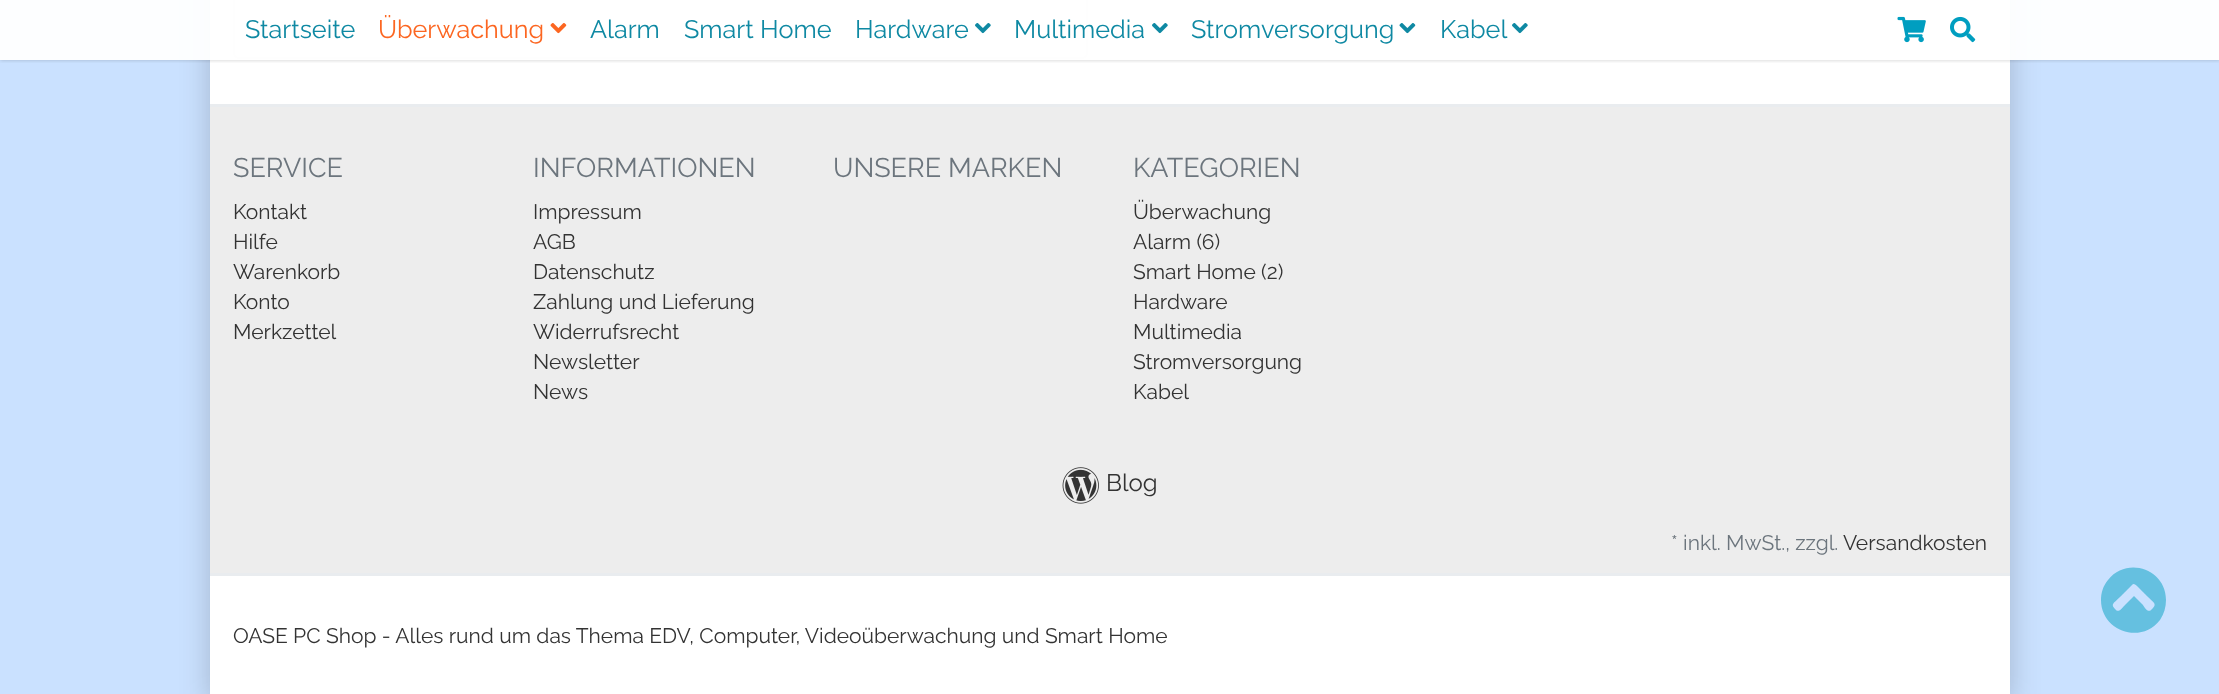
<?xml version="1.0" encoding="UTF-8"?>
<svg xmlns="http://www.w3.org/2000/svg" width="2219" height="694">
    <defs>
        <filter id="blur1" x="-50%" y="-200%" width="200%" height="500%"><feGaussianBlur stdDeviation="15"/></filter>
        <clipPath id="clip1"><rect x="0" y="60" width="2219" height="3"/></clipPath>
        <filter id="blur2" x="-50%" y="-200%" width="200%" height="500%"><feGaussianBlur stdDeviation="2"/></filter>
    </defs>
    <rect width="100%" height="100%" fill="#CAE1FF"/>
    <rect x="210" y="-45" width="1800" height="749" fill="#000000" fill-opacity="0.2" filter="url(#blur1)"/>
    <rect x="210" y="0" width="1800" height="104" fill="#FFFFFF"/>
    <rect x="234" y="-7" width="853" height="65" rx="5" fill="none" stroke="#DFDFDF" stroke-width="2"/>
    <g clip-path="url(#clip1)">
        <rect x="0" y="0" width="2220" height="60" fill="#000000" fill-opacity="0.2" filter="url(#blur2)"/>
    </g>
    <rect x="0" y="0" width="2219" height="60" fill="#FFFFFF" fill-opacity="0.95"/>
    <text x="245" y="38" font-family="Raleway" font-size="25.25" font-weight="100" fill="#0F89A3">Startseite</text>
    <text x="378" y="38" font-family="Raleway" font-size="25.25" font-weight="100" fill="#FC6621">Überwachung</text>
    <image x="550" y="23" width="17" height="11" href="img_01.png"/>
    <text x="590" y="38" font-family="Raleway" font-size="25.25" font-weight="100" fill="#0F89A3">Alarm</text>
    <text x="684" y="38" font-family="Raleway" font-size="25.25" font-weight="100" fill="#0F89A3">Smart Home</text>
    <text x="855" y="38" font-family="Raleway" font-size="25.25" font-weight="100" fill="#0F89A3">Hardware</text>
    <image x="975" y="23" width="16" height="11" href="img_02.png"/>
    <text x="1014" y="38" font-family="Raleway" font-size="25.25" font-weight="100" fill="#0F89A3">Multimedia</text>
    <image x="1152" y="23" width="16" height="11" href="img_02.png"/>
    <text x="1191" y="38" font-family="Raleway" font-size="25.25" font-weight="100" fill="#0F89A3">Stromversorgung</text>
    <image x="1399" y="23" width="17" height="11" href="img_03.png"/>
    <text x="1440" y="38" font-family="Raleway" font-size="25.25" font-weight="100" fill="#0F89A3">Kabel</text>
    <image x="1512" y="23" width="16" height="11" href="img_02.png"/>
    <image x="1897" y="16" width="29" height="27" href="img_04.png"/>
    <image x="1950" y="16" width="26" height="27" href="img_05.png"/>
    <rect x="210" y="107" width="1800" height="466" fill="#EDEDED"/>
    <rect x="210" y="104" width="1800" height="3" fill="#E9ECEF"/>
    <rect x="210" y="573" width="1800" height="3" fill="#E9ECEF"/>
    <text x="233" y="177" font-family="Raleway" font-size="27" font-weight="100" fill="#6C757D">SERVICE</text>
    <text font-family="Raleway" font-size="21" font-weight="100" fill="#333333">
        <tspan x="233" y="219">Kontakt</tspan>
        <tspan x="233" y="249">Hilfe</tspan>
        <tspan x="233" y="279">Warenkorb</tspan>
        <tspan x="233" y="309">Konto</tspan>
        <tspan x="233" y="339">Merkzettel</tspan>
    </text>
    <text x="533" y="177" font-family="Raleway" font-size="27" font-weight="100" fill="#6C757D">INFORMATIONEN</text>
    <text font-family="Raleway" font-size="21" font-weight="100" fill="#333333">
        <tspan x="533" y="219">Impressum</tspan>
        <tspan x="533" y="249">AGB</tspan>
        <tspan x="533" y="279">Datenschutz</tspan>
        <tspan x="533" y="309">Zahlung und Lieferung</tspan>
        <tspan x="533" y="339">Widerrufsrecht</tspan>
        <tspan x="533" y="369">Newsletter</tspan>
        <tspan x="533" y="399">News</tspan>
    </text>
    <text x="833" y="177" font-family="Raleway" font-size="27" font-weight="100" fill="#6C757D">UNSERE MARKEN</text>
    <text x="1133" y="177" font-family="Raleway" font-size="27" font-weight="100" fill="#6C757D">KATEGORIEN</text>
    <text font-family="Raleway" font-size="21" font-weight="100" fill="#333333">
        <tspan x="1133" y="219">Überwachung</tspan>
        <tspan x="1133" y="249">Alarm (6)</tspan>
        <tspan x="1133" y="279">Smart Home (2)</tspan>
        <tspan x="1133" y="309">Hardware</tspan>
        <tspan x="1133" y="339">Multimedia</tspan>
        <tspan x="1133" y="369">Stromversorgung</tspan>
        <tspan x="1133" y="399">Kabel</tspan>
    </text>
    <image x="1062" y="467" width="37" height="37" href="img_06.png"/>
    <text x="1106" y="491" font-family="Raleway" font-size="24" font-weight="100" fill="#333333">Blog</text>
    <text x="1671" y="550" font-family="Raleway" font-size="21" font-weight="100" fill="#6C757D">* inkl. MwSt., zzgl.</text>
    <text x="1843" y="550" font-family="Raleway" font-size="21" font-weight="100" fill="#333333">Versandkosten</text>
    <path d="M 2101 600 C 2101 593 2103 586 2108 580 C 2127 556 2166 569 2166 600 C 2166 607 2164 614 2160 620 C 2141 645 2101 631 2101 600 Z M 2132 585 L 2120 597 C 2113 604 2110 604 2116 610 C 2119 613 2123 607 2125 605 L 2134 596 L 2143 605 C 2144 607 2148 613 2151 610 C 2158 604 2154 603 2148 597 L 2139 588 C 2137 586 2134 582 2132 585 Z" fill="#65C0E0"/>
    <rect x="210" y="576" width="1800" height="118" fill="#FFFFFF"/>
    <text x="233" y="643" font-family="Raleway" font-size="21" font-weight="100" fill="#333333">OASE PC Shop - Alles rund um das Thema EDV, Computer, Videoüberwachung und Smart Home</text>
</svg>
